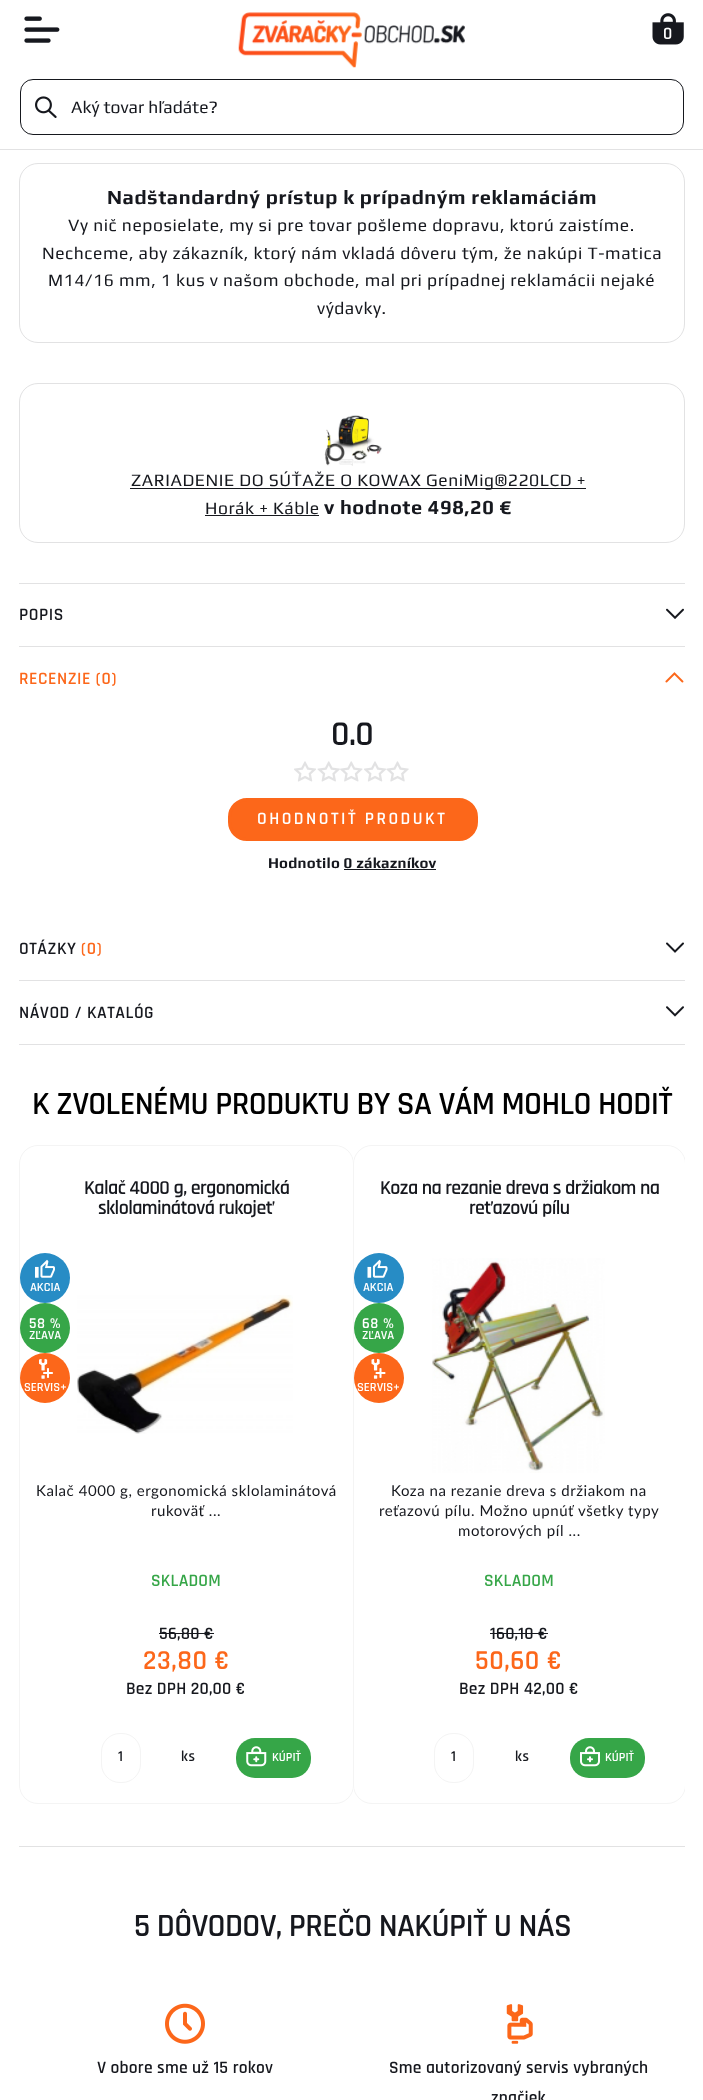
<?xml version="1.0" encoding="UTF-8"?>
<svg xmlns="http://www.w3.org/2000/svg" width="703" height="2100">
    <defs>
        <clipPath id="clip1"><rect x="19" y="1145" width="334" height="661"/></clipPath>
        <clipPath id="clip2"><rect x="353" y="1145" width="332" height="661"/></clipPath>
    </defs>
    <rect width="100%" height="100%" fill="#FFFFFF"/>
    <rect x="0" y="149" width="703" height="1" fill="#E2E2E3"/>
    <image x="24" y="16" width="36" height="27" href="img_01.png"/>
    <image x="238" y="12" width="227" height="56" href="img_02.png"/>
    <image x="652" y="13" width="32" height="32" href="img_03.png"/>
    <text x="663" y="39" font-family="Rajdhani" font-size="17.5" font-weight="600" letter-spacing="0.55" fill="#FFFFFF">0</text>
    <rect x="20.5" y="79.5" width="663" height="55" rx="12.5" fill="none" stroke="#16181E"/>
    <image x="35" y="96" width="22" height="22" href="img_04.png"/>
    <text x="71" y="113" font-family="Play" font-size="17.5" fill="#16181E">Aký tovar hľadáte?</text>
    <rect x="19.5" y="163.5" width="665" height="179" rx="18.5" fill="none" stroke="#E2E2E3"/>
    <text x="107" y="204" font-family="Play" font-size="20" font-weight="700" letter-spacing="0.55" fill="#16181E">Nadštandardný prístup k prípadným reklamáciám</text>
    <text x="68" y="231" font-family="Play" font-size="17.5" letter-spacing="0.55" fill="#16181E">Vy nič neposielate, my si pre tovar pošleme dopravu, ktorú zaistíme.</text>
    <text x="42" y="259" font-family="Play" font-size="17.5" letter-spacing="0.55" fill="#16181E">Nechceme, aby zákazník, ktorý nám vkladá dôveru tým, že nakúpi T-matica</text>
    <text x="48" y="286" font-family="Play" font-size="17.5" letter-spacing="0.55" fill="#16181E">M14/16 mm, 1 kus v našom obchode, mal pri prípadnej reklamácii nejaké</text>
    <text x="317" y="314" font-family="Play" font-size="17.5" letter-spacing="0.55" fill="#16181E">výdavky.</text>
    <rect x="19.5" y="383.5" width="665" height="159" rx="18.5" fill="none" stroke="#E2E2E3"/>
    <image x="324" y="415" width="58" height="51" href="img_05.png"/>
    <rect x="130" y="488" width="456" height="1" fill="#16181E"/>
    <text x="131" y="486" font-family="Play" font-size="17.5" letter-spacing="0.55" fill="#16181E">ZARIADENIE DO SÚŤAŽE O KOWAX GeniMig®220LCD +</text>
    <text x="205" y="514" font-family="Play" font-size="17.5" letter-spacing="0.55" fill="#16181E">Horák + Káble</text>
    <rect x="205" y="515" width="114" height="1" fill="#16181E"/>
    <text x="324" y="514" font-family="Play" font-size="20" font-weight="700" letter-spacing="0.55" fill="#16181E">v hodnote 498,20 €</text>
    <rect x="19" y="583" width="666" height="1" fill="#E2E2E3"/>
    <rect x="19" y="646" width="666" height="1" fill="#E2E2E3"/>
    <text x="19" y="620" font-family="Rajdhani" font-size="17.5" font-weight="600" letter-spacing="0.55" fill="#16181E">POPIS</text>
    <image x="666" y="608" width="18" height="11" href="img_06.png"/>
    <text x="19" y="684" font-family="Rajdhani" font-size="17.5" font-weight="600" letter-spacing="0.55" fill="#FC671A">RECENZIE (0)</text>
    <image x="665" y="672" width="19" height="11" href="img_07.png"/>
    <text x="331" y="745" font-family="Rajdhani" font-size="35" font-weight="600" letter-spacing="-0.6" fill="#16181E">0.0</text>
    <image x="294" y="761" width="22" height="21" href="img_08.png"/>
    <image x="317" y="761" width="23" height="21" href="img_09.png"/>
    <image x="340" y="761" width="23" height="21" href="img_10.png"/>
    <image x="364" y="761" width="22" height="21" href="img_08.png"/>
    <image x="386" y="761" width="23" height="21" href="img_11.png"/>
    <rect x="229.5" y="799.5" width="247" height="40" rx="17.5" fill="#FC671A" stroke="#FC671A" stroke-width="3"/>
    <text x="257" y="824" font-family="Rajdhani" font-size="17.5" font-weight="600" letter-spacing="2.5" fill="#FFFFFF">OHODNOTIŤ PRODUKT</text>
    <text x="268" y="868" font-family="Play" font-size="15" font-weight="700" letter-spacing="0.2" fill="#16181E">Hodnotilo 0 zákazníkov</text>
    <rect x="344" y="869" width="92" height="1" fill="#16181E"/>
    <rect x="19" y="980" width="666" height="1" fill="#E2E2E3"/>
    <text x="19" y="954" font-family="Rajdhani" font-size="17.5" font-weight="600" letter-spacing="0.55" fill="#16181E">OTÁZKY</text>
    <text x="81" y="954" font-family="Rajdhani" font-size="17.5" font-weight="600" letter-spacing="0.55" fill="#FC671A">(0)</text>
    <image x="666" y="942" width="18" height="11" href="img_12.png"/>
    <rect x="19" y="1044" width="666" height="1" fill="#E2E2E3"/>
    <text x="19" y="1018" font-family="Rajdhani" font-size="17.5" font-weight="600" letter-spacing="0.55" fill="#16181E">NÁVOD / KATALÓG</text>
    <image x="666" y="1006" width="18" height="11" href="img_13.png"/>
    <text x="32" y="1114" font-family="Rajdhani" font-size="32.5" font-weight="600" letter-spacing="-0.6" fill="#000000">K ZVOLENÉMU PRODUKTU BY SA VÁM MOHLO HODIŤ</text>
    <g clip-path="url(#clip1)">
        <rect x="19.5" y="1145.5" width="334" height="658" rx="18.5" fill="none" stroke="#F4F4F4"/>
    </g>
    <text x="84" y="1194" font-family="Rajdhani" font-size="20" font-weight="600" letter-spacing="-0.6" fill="#16181E">Kalač 4000 g, ergonomická</text>
    <text x="98" y="1214" font-family="Rajdhani" font-size="20" font-weight="600" letter-spacing="-0.6" fill="#16181E">sklolaminátová rukojeť</text>
    <circle cx="45" cy="1278" r="25" fill="#278CC5"/>
    <image x="35" y="1259" width="20" height="19" href="img_14.png"/>
    <text x="30" y="1291" font-family="Rajdhani" font-size="12.5" font-weight="600" fill="#FFFFFF">AKCIA</text>
    <circle cx="45" cy="1328" r="25" fill="#36A648"/>
    <text x="29" y="1328" font-family="Rajdhani" font-size="15" font-weight="600" letter-spacing="0.55" fill="#FFFFFF">58 %</text>
    <text x="29" y="1339" font-family="Rajdhani" font-size="12.5" font-weight="600" fill="#FFFFFF">ZĽAVA</text>
    <circle cx="45" cy="1378" r="25" fill="#FC671A"/>
    <image x="39" y="1359" width="14" height="20" href="img_15.png"/>
    <text x="24" y="1391" font-family="Rajdhani" font-size="12.5" font-weight="600" fill="#FFFFFF">SERVIS+</text>
    <image x="77" y="1295" width="216" height="139" href="img_16.png"/>
    <text x="36" y="1496" font-family="Lato" font-size="15" letter-spacing="0.55" fill="#16181E">Kalač 4000 g, ergonomická sklolaminátová</text>
    <text x="151" y="1516" font-family="Lato" font-size="15" letter-spacing="0.55" fill="#16181E">rukoväť ...</text>
    <text x="151" y="1586" font-family="Rajdhani" font-size="17.5" font-weight="600" letter-spacing="0.2" fill="#36A648">SKLADOM</text>
    <text x="159" y="1639" font-family="Rajdhani" font-size="17.5" font-weight="600" letter-spacing="0.2" fill="#16181E">56,80 €</text>
    <rect x="159" y="1633" width="55" height="1" fill="#16181E"/>
    <text x="143" y="1669" font-family="Rajdhani" font-size="27.5" font-weight="600" letter-spacing="0.5" fill="#FC671A">23,80 €</text>
    <text x="126" y="1694" font-family="Rajdhani" font-size="17.5" font-weight="600" letter-spacing="0.2" fill="#16181E">Bez DPH 20,00 €</text>
    <rect x="101.5" y="1733.5" width="39" height="49" rx="18.5" fill="none" stroke="#F4F4F4"/>
    <text x="118" y="1761" font-family="Rajdhani" font-size="15" font-weight="600" letter-spacing="0.2" fill="#16181E">1</text>
    <text x="181" y="1761" font-family="Rajdhani" font-size="15" font-weight="600" letter-spacing="0.55" fill="#16181E">ks</text>
    <rect x="236" y="1738" width="75" height="40" rx="19" fill="#36A648"/>
    <image x="246" y="1746" width="21" height="21" href="img_17.png"/>
    <text x="272" y="1761" font-family="Rajdhani" font-size="12.5" font-weight="600" fill="#FFFFFF">KÚPIŤ</text>
    <g clip-path="url(#clip2)">
        <rect x="353.5" y="1145.5" width="332" height="658" rx="18.5" fill="none" stroke="#F4F4F4"/>
    </g>
    <text x="380" y="1194" font-family="Rajdhani" font-size="20" font-weight="600" letter-spacing="-0.6" fill="#16181E">Koza na rezanie dreva s držiakom na</text>
    <text x="469" y="1214" font-family="Rajdhani" font-size="20" font-weight="600" letter-spacing="-0.6" fill="#16181E">reťazovú pílu</text>
    <circle cx="379" cy="1278" r="25" fill="#278CC5"/>
    <image x="367" y="1259" width="21" height="19" href="img_18.png"/>
    <text x="363" y="1291" font-family="Rajdhani" font-size="12.5" font-weight="600" fill="#FFFFFF">AKCIA</text>
    <circle cx="379" cy="1328" r="25" fill="#36A648"/>
    <text x="362" y="1328" font-family="Rajdhani" font-size="15" font-weight="600" letter-spacing="0.55" fill="#FFFFFF">68 %</text>
    <text x="362" y="1339" font-family="Rajdhani" font-size="12.5" font-weight="600" fill="#FFFFFF">ZĽAVA</text>
    <circle cx="379" cy="1378" r="25" fill="#FC671A"/>
    <image x="371" y="1359" width="15" height="20" href="img_19.png"/>
    <text x="357" y="1391" font-family="Rajdhani" font-size="12.5" font-weight="600" fill="#FFFFFF">SERVIS+</text>
    <image x="432" y="1258" width="173" height="215" href="img_20.png"/>
    <text x="391" y="1496" font-family="Lato" font-size="15" letter-spacing="0.55" fill="#16181E">Koza na rezanie dreva s držiakom na</text>
    <text x="379" y="1516" font-family="Lato" font-size="15" letter-spacing="0.55" fill="#16181E">reťazovú pílu. Možno upnúť všetky typy</text>
    <text x="458" y="1536" font-family="Lato" font-size="15" letter-spacing="0.55" fill="#16181E">motorových píl ...</text>
    <text x="484" y="1586" font-family="Rajdhani" font-size="17.5" font-weight="600" letter-spacing="0.2" fill="#36A648">SKLADOM</text>
    <text x="490" y="1639" font-family="Rajdhani" font-size="17.5" font-weight="600" letter-spacing="0.2" fill="#16181E">160,10 €</text>
    <rect x="490" y="1633" width="58" height="1" fill="#16181E"/>
    <text x="475" y="1669" font-family="Rajdhani" font-size="27.5" font-weight="600" letter-spacing="0.5" fill="#FC671A">50,60 €</text>
    <text x="459" y="1694" font-family="Rajdhani" font-size="17.5" font-weight="600" letter-spacing="0.2" fill="#16181E">Bez DPH 42,00 €</text>
    <rect x="434.5" y="1733.5" width="39" height="49" rx="18.5" fill="none" stroke="#F4F4F4"/>
    <text x="451" y="1761" font-family="Rajdhani" font-size="15" font-weight="600" letter-spacing="0.2" fill="#16181E">1</text>
    <text x="515" y="1761" font-family="Rajdhani" font-size="15" font-weight="600" letter-spacing="0.55" fill="#16181E">ks</text>
    <rect x="570" y="1738" width="75" height="40" rx="19" fill="#36A648"/>
    <image x="580" y="1746" width="20" height="21" href="img_21.png"/>
    <text x="605" y="1761" font-family="Rajdhani" font-size="12.5" font-weight="600" fill="#FFFFFF">KÚPIŤ</text>
    <rect x="19" y="1846" width="666" height="1" fill="#E2E2E3"/>
    <text x="134" y="1936" font-family="Rajdhani" font-size="32.5" font-weight="600" letter-spacing="-0.6" fill="#16181E">5 DÔVODOV, PREČO NAKÚPIŤ U NÁS</text>
    <image x="165" y="2003" width="40" height="41" href="img_22.png"/>
    <text x="97" y="2073" font-family="Rajdhani" font-size="17.5" font-weight="600" letter-spacing="0.2" fill="#16181E">V obore sme už 15 rokov</text>
    <image x="506" y="2004" width="27" height="40" href="img_23.png"/>
    <text x="389" y="2073" font-family="Rajdhani" font-size="17.5" font-weight="600" letter-spacing="0.2" fill="#16181E">Sme autorizovaný servis vybraných</text>
    <text x="491" y="2103" font-family="Rajdhani" font-size="17.5" font-weight="600" letter-spacing="0.2" fill="#16181E">značiek</text>
</svg>
